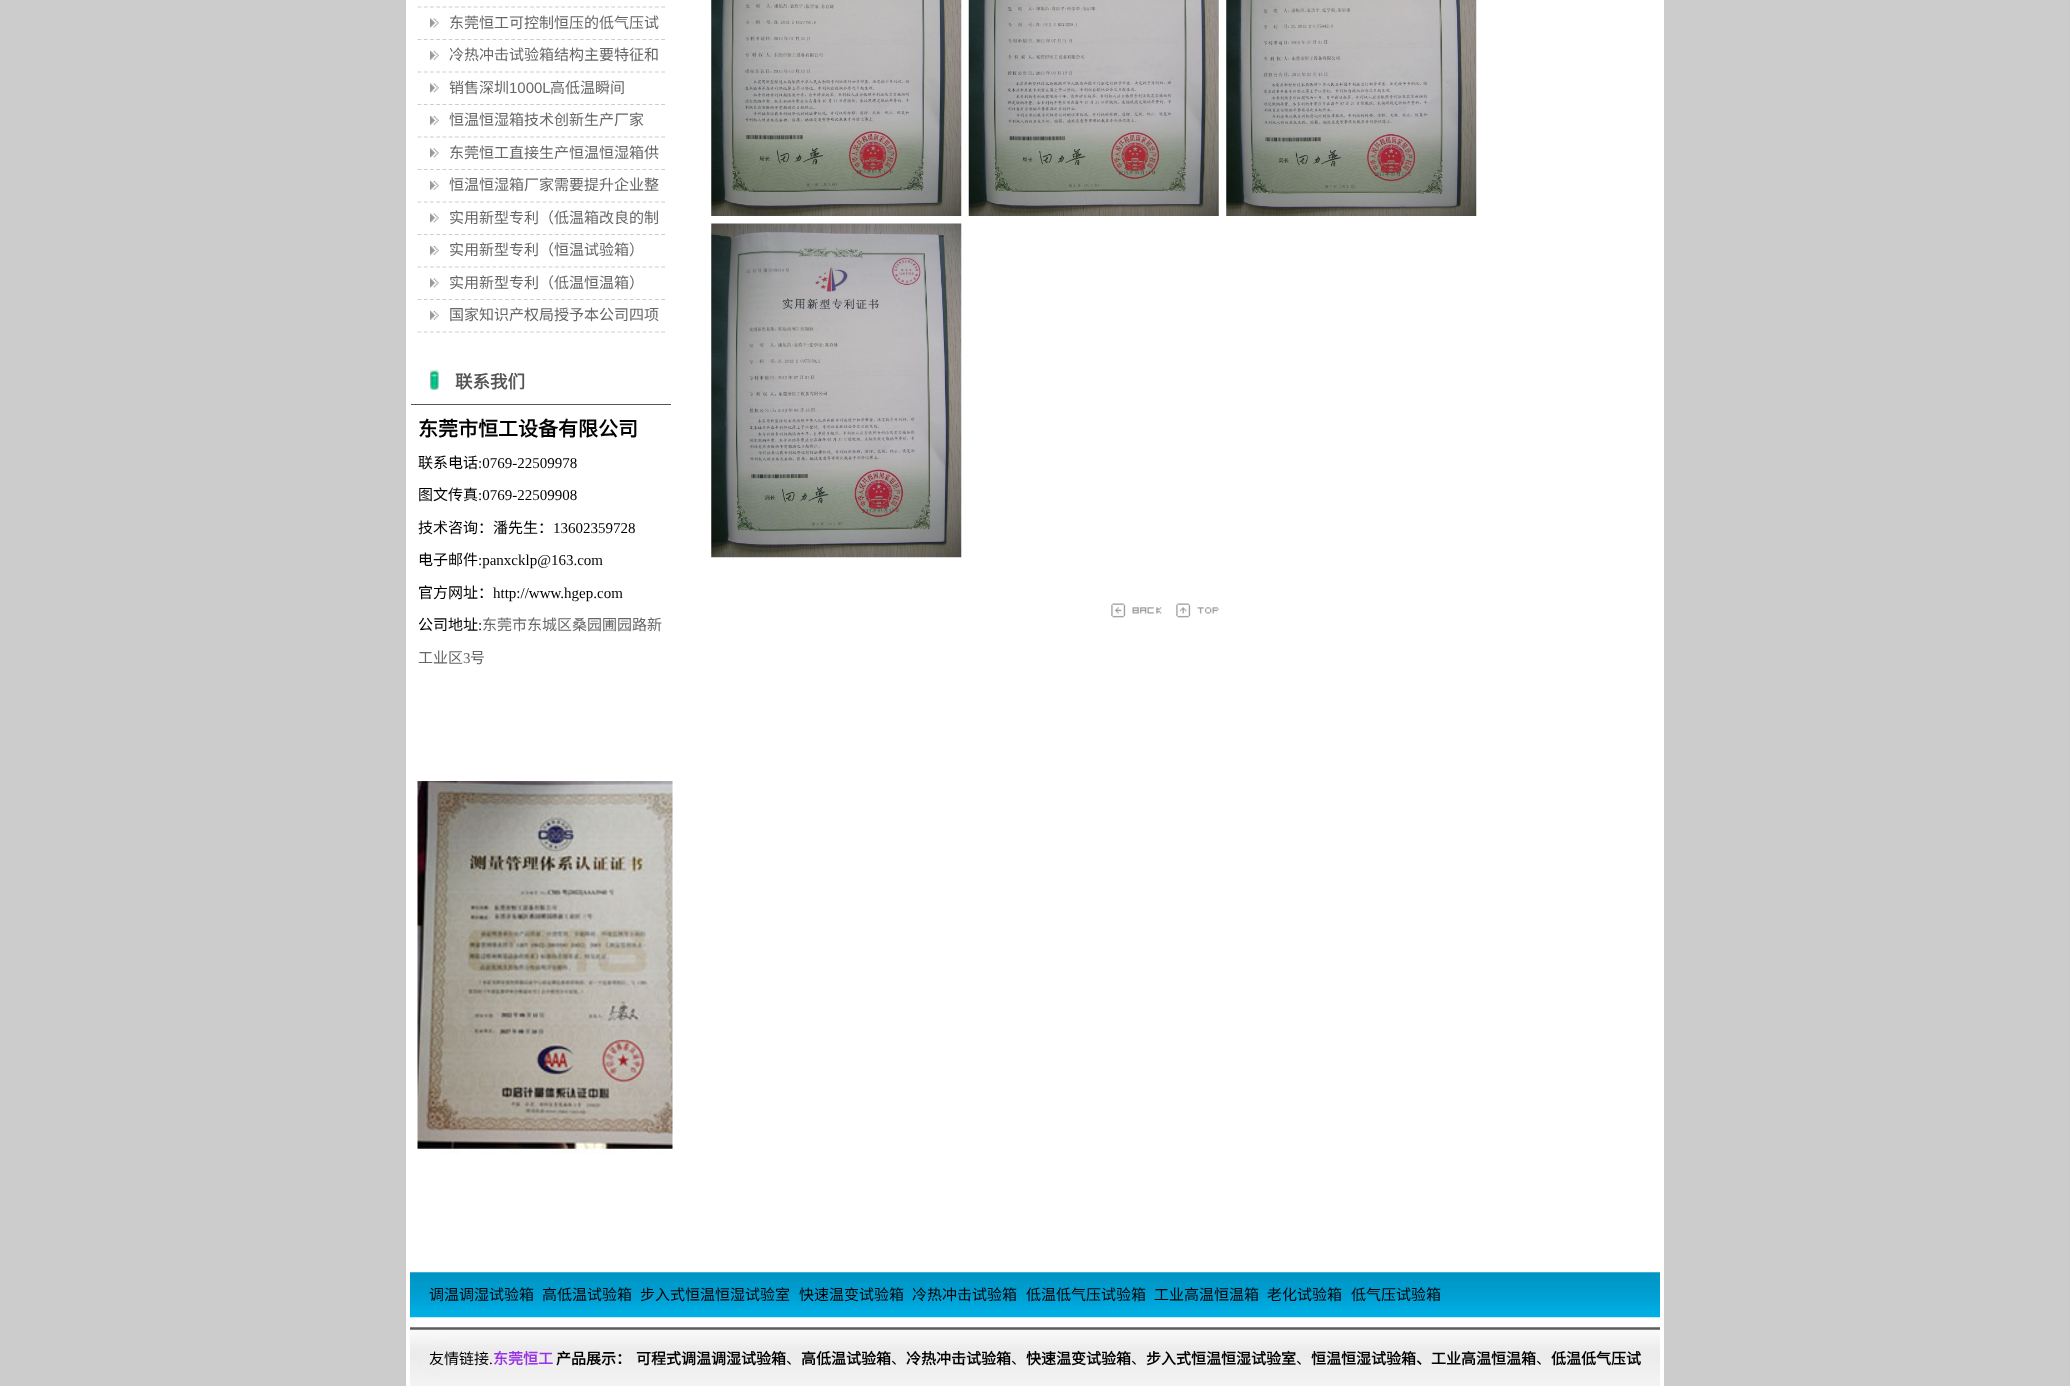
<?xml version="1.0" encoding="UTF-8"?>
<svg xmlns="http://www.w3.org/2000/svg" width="2070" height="1386">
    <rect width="100%" height="100%" fill="#CCCCCC"/>
    <rect x="406" y="0" width="1258" height="1386" fill="#FFFFFF"/>
    <path d="M 417.5 7 H 665" fill="none" stroke="#CDCDCD" stroke-width="1.2" stroke-dasharray="3.75 2.5"/>
    <image x="430" y="18" width="9" height="10" href="img_01.png"/>
    <path d="M 417.5 39.5 H 665" fill="none" stroke="#CDCDCD" stroke-width="1.2" stroke-dasharray="3.75 2.5"/>
    <text x="449" y="28" font-family="Noto Sans CJK SC" font-size="15" fill="#666666">东莞恒工可控制恒压的低气压试</text>
    <image x="430" y="51" width="9" height="9" href="img_02.png"/>
    <path d="M 417.5 72 H 665" fill="none" stroke="#CDCDCD" stroke-width="1.2" stroke-dasharray="3.75 2.5"/>
    <text x="449" y="60" font-family="Noto Sans CJK SC" font-size="15" fill="#666666">冷热冲击试验箱结构主要特征和</text>
    <image x="430" y="83" width="9" height="10" href="img_03.png"/>
    <path d="M 417.5 104.5 H 665" fill="none" stroke="#CDCDCD" stroke-width="1.2" stroke-dasharray="3.75 2.5"/>
    <text x="449" y="93" font-family="Noto Sans CJK SC" font-size="15" fill="#666666">销售深圳</text>
    <text x="509" y="93" font-family="Liberation Sans" font-size="15" fill="#666666">1000L</text>
    <text x="550" y="93" font-family="Noto Sans CJK SC" font-size="15" fill="#666666">高低温瞬间</text>
    <image x="430" y="116" width="9" height="9" href="img_02.png"/>
    <path d="M 417.5 137 H 665" fill="none" stroke="#CDCDCD" stroke-width="1.2" stroke-dasharray="3.75 2.5"/>
    <text x="449" y="125" font-family="Noto Sans CJK SC" font-size="15" fill="#666666">恒温恒湿箱技术创新生产厂家</text>
    <image x="430" y="148" width="9" height="10" href="img_03.png"/>
    <path d="M 417.5 169.5 H 665" fill="none" stroke="#CDCDCD" stroke-width="1.2" stroke-dasharray="3.75 2.5"/>
    <text x="449" y="158" font-family="Noto Sans CJK SC" font-size="15" fill="#666666">东莞恒工直接生产恒温恒湿箱供</text>
    <image x="430" y="181" width="9" height="9" href="img_02.png"/>
    <path d="M 417.5 202 H 665" fill="none" stroke="#CDCDCD" stroke-width="1.2" stroke-dasharray="3.75 2.5"/>
    <text x="449" y="190" font-family="Noto Sans CJK SC" font-size="15" fill="#666666">恒温恒湿箱厂家需要提升企业整</text>
    <image x="430" y="213" width="9" height="10" href="img_03.png"/>
    <path d="M 417.5 234.5 H 665" fill="none" stroke="#CDCDCD" stroke-width="1.2" stroke-dasharray="3.75 2.5"/>
    <text x="449" y="223" font-family="Noto Sans CJK SC" font-size="15" fill="#666666">实用新型专利（低温箱改良的制</text>
    <image x="430" y="246" width="9" height="9" href="img_02.png"/>
    <path d="M 417.5 267 H 665" fill="none" stroke="#CDCDCD" stroke-width="1.2" stroke-dasharray="3.75 2.5"/>
    <text x="449" y="255" font-family="Noto Sans CJK SC" font-size="15" fill="#666666">实用新型专利（恒温试验箱）</text>
    <image x="430" y="278" width="9" height="10" href="img_03.png"/>
    <path d="M 417.5 299.5 H 665" fill="none" stroke="#CDCDCD" stroke-width="1.2" stroke-dasharray="3.75 2.5"/>
    <text x="449" y="288" font-family="Noto Sans CJK SC" font-size="15" fill="#666666">实用新型专利（低温恒温箱）</text>
    <image x="430" y="311" width="9" height="9" href="img_02.png"/>
    <path d="M 417.5 332 H 665" fill="none" stroke="#CDCDCD" stroke-width="1.2" stroke-dasharray="3.75 2.5"/>
    <text x="449" y="320" font-family="Noto Sans CJK SC" font-size="15" fill="#666666">国家知识产权局授予本公司四项</text>
    <image x="430" y="369" width="9" height="21" href="img_04.png"/>
    <rect x="411" y="404" width="260" height="1" fill="#555555"/>
    <text x="455" y="388" font-family="Noto Sans CJK SC" font-size="17.5" font-weight="700" fill="#555555">联系我们</text>
    <text x="418" y="436" font-family="Noto Sans CJK SC" font-size="20" font-weight="700" fill="#000000">东莞市恒工设备有限公司</text>
    <text x="418" y="468" font-family="Noto Sans CJK SC" font-size="15" fill="#000000">联系电话</text>
    <text x="478" y="468" font-family="Liberation Serif" font-size="15" fill="#000000">:0769-22509978</text>
    <text x="418" y="500" font-family="Noto Sans CJK SC" font-size="15" fill="#000000">图文传真</text>
    <text x="478" y="500" font-family="Liberation Serif" font-size="15" fill="#000000">:0769-22509908</text>
    <text x="418" y="533" font-family="Noto Sans CJK SC" font-size="15" fill="#000000">技术咨询：潘先生：</text>
    <text x="553" y="533" font-family="Liberation Serif" font-size="15" fill="#000000">13602359728</text>
    <text x="418" y="565" font-family="Noto Sans CJK SC" font-size="15" fill="#000000">电子邮件</text>
    <text x="478" y="565" font-family="Liberation Serif" font-size="15" fill="#000000">:panxcklp@163.com</text>
    <text x="418" y="598" font-family="Noto Sans CJK SC" font-size="15" fill="#000000">官方网址：</text>
    <text x="493" y="598" font-family="Liberation Serif" font-size="15" fill="#000000">http://www.hgep.com</text>
    <text x="418" y="630" font-family="Noto Sans CJK SC" font-size="15" fill="#000000">公司地址</text>
    <text x="478" y="630" font-family="Liberation Serif" font-size="15" fill="#000000">:</text>
    <text x="482" y="630" font-family="Noto Sans CJK SC" font-size="15" fill="#666666">东莞市东城区桑园圃园路新</text>
    <text x="418" y="663" font-family="Noto Sans CJK SC" font-size="15" fill="#666666">工业区</text>
    <text x="463" y="663" font-family="Liberation Serif" font-size="15" fill="#666666">3</text>
    <text x="470" y="663" font-family="Noto Sans CJK SC" font-size="15" fill="#666666">号</text>
    <image x="417" y="781" width="256" height="373" href="img_05.png"/>
    <image x="711" y="0" width="251" height="216" href="img_06.png"/>
    <image x="968" y="0" width="251" height="216" href="img_07.png"/>
    <image x="1226" y="0" width="251" height="216" href="img_08.png"/>
    <image x="711" y="223" width="251" height="335" href="img_09.png"/>
    <image x="1111" y="603" width="51" height="15" href="img_10.png"/>
    <image x="1176" y="603" width="43" height="15" href="img_11.png"/>
    <image x="410" y="1272" width="1250" height="46" href="img_12.png"/>
    <text x="429" y="1300" font-family="Noto Sans CJK SC" font-size="15" fill="#000000">调温调湿试验箱</text>
    <text x="542" y="1300" font-family="Noto Sans CJK SC" font-size="15" fill="#000000">高低温试验箱</text>
    <text x="640" y="1300" font-family="Noto Sans CJK SC" font-size="15" fill="#000000">步入式恒温恒湿试验室</text>
    <text x="799" y="1300" font-family="Noto Sans CJK SC" font-size="15" fill="#000000">快速温变试验箱</text>
    <text x="912" y="1300" font-family="Noto Sans CJK SC" font-size="15" fill="#000000">冷热冲击试验箱</text>
    <text x="1026" y="1300" font-family="Noto Sans CJK SC" font-size="15" fill="#000000">低温低气压试验箱</text>
    <text x="1154" y="1300" font-family="Noto Sans CJK SC" font-size="15" fill="#000000">工业高温恒温箱</text>
    <text x="1267" y="1300" font-family="Noto Sans CJK SC" font-size="15" fill="#000000">老化试验箱</text>
    <text x="1351" y="1300" font-family="Noto Sans CJK SC" font-size="15" fill="#000000">低气压试验箱</text>
    <image x="410" y="1327" width="1250" height="59" href="img_13.png"/>
    <text x="429" y="1364" font-family="Noto Sans CJK SC" font-size="15" fill="#000000">友情链接</text>
    <text x="489" y="1364" font-family="Liberation Serif" font-size="15" fill="#000000">.</text>
    <text x="493" y="1364" font-family="Noto Sans CJK SC" font-size="15" font-weight="700" fill="#9933E5">东莞恒工</text>
    <text x="556" y="1364" font-family="Noto Sans CJK SC" font-size="15" font-weight="700" fill="#000000">产品展示：</text>
    <text x="636" y="1364" font-family="Noto Sans CJK SC" font-size="15" font-weight="700" fill="#000000">可程式调温调湿试验箱</text>
    <text x="786" y="1364" font-family="Noto Sans CJK SC" font-size="15" fill="#000000">、</text>
    <text x="801" y="1364" font-family="Noto Sans CJK SC" font-size="15" font-weight="700" fill="#000000">高低温试验箱</text>
    <text x="891" y="1364" font-family="Noto Sans CJK SC" font-size="15" fill="#000000">、</text>
    <text x="906" y="1364" font-family="Noto Sans CJK SC" font-size="15" font-weight="700" fill="#000000">冷热冲击试验箱</text>
    <text x="1011" y="1364" font-family="Noto Sans CJK SC" font-size="15" fill="#000000">、</text>
    <text x="1026" y="1364" font-family="Noto Sans CJK SC" font-size="15" font-weight="700" fill="#000000">快速温变试验箱</text>
    <text x="1131" y="1364" font-family="Noto Sans CJK SC" font-size="15" fill="#000000">、</text>
    <text x="1146" y="1364" font-family="Noto Sans CJK SC" font-size="15" font-weight="700" fill="#000000">步入式恒温恒湿试验室</text>
    <text x="1296" y="1364" font-family="Noto Sans CJK SC" font-size="15" fill="#000000">、</text>
    <text x="1311" y="1364" font-family="Noto Sans CJK SC" font-size="15" font-weight="700" fill="#000000">恒温恒湿试验箱、工业高温恒温箱</text>
    <text x="1536" y="1364" font-family="Noto Sans CJK SC" font-size="15" fill="#000000">、</text>
    <text x="1551" y="1364" font-family="Noto Sans CJK SC" font-size="15" font-weight="700" fill="#000000">低温低气压试</text>
</svg>
